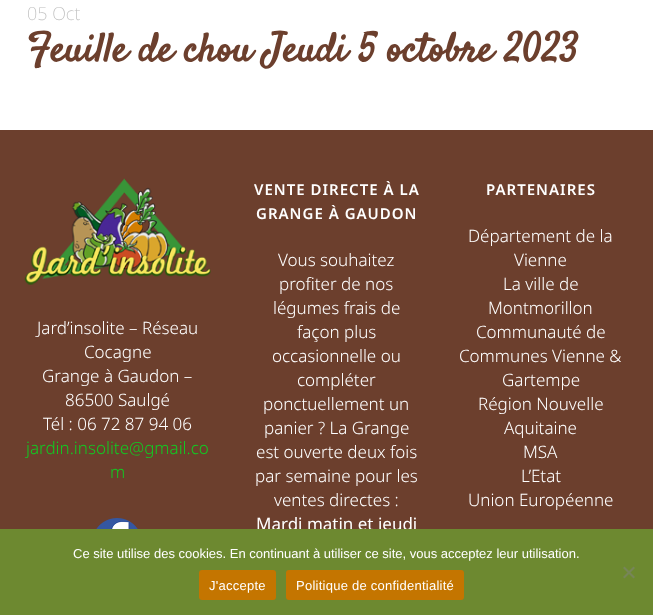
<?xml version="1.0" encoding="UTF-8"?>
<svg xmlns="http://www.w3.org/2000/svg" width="653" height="615">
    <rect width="100%" height="100%" fill="#FFFFFF"/>
    <text x="27" y="20" font-family="Noto Sans" font-size="18" font-weight="200" fill="#BEBEBE">05 Oct</text>
    <text x="27" y="61" font-family="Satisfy" font-size="40" font-weight="700" fill="#6C3F2D">Feuille de chou Jeudi 5 octobre 2023</text>
    <rect x="0" y="130" width="653" height="399" fill="#6C3F2D"/>
    <image x="24" y="178" width="187" height="107" href="img_01.png"/>
    <text x="37" y="334" font-family="Noto Sans" font-size="17" font-weight="300" fill="#FFFFFF">Jard’insolite – Réseau</text>
    <text x="84" y="358" font-family="Noto Sans" font-size="17" font-weight="300" fill="#FFFFFF">Cocagne</text>
    <text x="42" y="382" font-family="Noto Sans" font-size="17" font-weight="300" fill="#FFFFFF">Grange à Gaudon –</text>
    <text x="65" y="406" font-family="Noto Sans" font-size="17" font-weight="300" fill="#FFFFFF">86500 Saulgé</text>
    <text x="43" y="430" font-family="Noto Sans" font-size="17" font-weight="300" fill="#FFFFFF">Tél : 06 72 87 94 06</text>
    <text x="26" y="454" font-family="Noto Sans" font-size="17" font-weight="300" fill="#11CB22">jardin.insolite@gmail.co</text>
    <text x="110" y="478" font-family="Noto Sans" font-size="17" font-weight="300" fill="#11CB22">m</text>
    <image x="96" y="518" width="42" height="11" href="img_02.png"/>
    <text x="254" y="195" font-family="Noto Sans" font-size="15" font-weight="600" letter-spacing="1" fill="#FFFFFF">VENTE DIRECTE À LA</text>
    <text x="256" y="219" font-family="Noto Sans" font-size="15" font-weight="600" letter-spacing="1" fill="#FFFFFF">GRANGE À GAUDON</text>
    <text x="278" y="266" font-family="Noto Sans" font-size="17" font-weight="300" fill="#FFFFFF">Vous souhaitez</text>
    <text x="279" y="290" font-family="Noto Sans" font-size="17" font-weight="300" fill="#FFFFFF">profiter de nos</text>
    <text x="273" y="314" font-family="Noto Sans" font-size="17" font-weight="300" fill="#FFFFFF">légumes frais de</text>
    <text x="297" y="338" font-family="Noto Sans" font-size="17" font-weight="300" fill="#FFFFFF">façon plus</text>
    <text x="272" y="362" font-family="Noto Sans" font-size="17" font-weight="300" fill="#FFFFFF">occasionnelle ou</text>
    <text x="297" y="386" font-family="Noto Sans" font-size="17" font-weight="300" fill="#FFFFFF">compléter</text>
    <text x="263" y="410" font-family="Noto Sans" font-size="17" font-weight="300" fill="#FFFFFF">ponctuellement un</text>
    <text x="264" y="434" font-family="Noto Sans" font-size="17" font-weight="300" fill="#FFFFFF">panier ? La Grange</text>
    <text x="256" y="458" font-family="Noto Sans" font-size="17" font-weight="300" fill="#FFFFFF">est ouverte deux fois</text>
    <text x="255" y="482" font-family="Noto Sans" font-size="17" font-weight="300" fill="#FFFFFF">par semaine pour les</text>
    <text x="274" y="506" font-family="Noto Sans" font-size="17" font-weight="300" fill="#FFFFFF">ventes directes :</text>
    <text x="256" y="530" font-family="Noto Sans" font-size="17" fill="#FFFFFF">Mardi matin et jeudi</text>
    <text x="486" y="195" font-family="Noto Sans" font-size="15" font-weight="600" letter-spacing="1" fill="#FFFFFF">PARTENAIRES</text>
    <text x="468" y="242" font-family="Noto Sans" font-size="17" font-weight="300" fill="#FFFFFF">Département de la</text>
    <text x="514" y="266" font-family="Noto Sans" font-size="17" font-weight="300" fill="#FFFFFF">Vienne</text>
    <text x="503" y="290" font-family="Noto Sans" font-size="17" font-weight="300" fill="#FFFFFF">La ville de</text>
    <text x="488" y="314" font-family="Noto Sans" font-size="17" font-weight="300" fill="#FFFFFF">Montmorillon</text>
    <text x="476" y="338" font-family="Noto Sans" font-size="17" font-weight="300" fill="#FFFFFF">Communauté de</text>
    <text x="459" y="362" font-family="Noto Sans" font-size="17" font-weight="300" fill="#FFFFFF">Communes Vienne &amp;</text>
    <text x="502" y="386" font-family="Noto Sans" font-size="17" font-weight="300" fill="#FFFFFF">Gartempe</text>
    <text x="478" y="410" font-family="Noto Sans" font-size="17" font-weight="300" fill="#FFFFFF">Région Nouvelle</text>
    <text x="504" y="434" font-family="Noto Sans" font-size="17" font-weight="300" fill="#FFFFFF">Aquitaine</text>
    <text x="523" y="458" font-family="Noto Sans" font-size="17" font-weight="300" fill="#FFFFFF">MSA</text>
    <text x="521" y="482" font-family="Noto Sans" font-size="17" font-weight="300" fill="#FFFFFF">L’Etat</text>
    <text x="468" y="506" font-family="Noto Sans" font-size="17" font-weight="300" fill="#FFFFFF">Union Européenne</text>
    <rect x="0" y="529" width="653" height="86" fill="#6D8930"/>
    <text x="73" y="558" font-family="Liberation Sans" font-size="13" fill="#FFFFFF">Ce site utilise des cookies. En continuant à utiliser ce site, vous acceptez leur utilisation.</text>
    <path d="M 633.5 566.5 L 635 568 L 624.5 578.5 L 623 577 Z" fill="#778558"/>
    <path d="M 623 568 L 624.5 566.5 L 635 577 L 633.5 578.5 Z" fill="#778558"/>
    <rect x="199" y="570" width="77" height="30" rx="3" fill="#C47500"/>
    <text x="209" y="590" font-family="Liberation Sans" font-size="13" letter-spacing="0.25" fill="#FFFFFF">J'accepte</text>
    <rect x="286" y="570" width="178" height="30" rx="3" fill="#C47500"/>
    <text x="296" y="590" font-family="Liberation Sans" font-size="13" letter-spacing="0.25" fill="#FFFFFF">Politique de confidentialité</text>
</svg>
